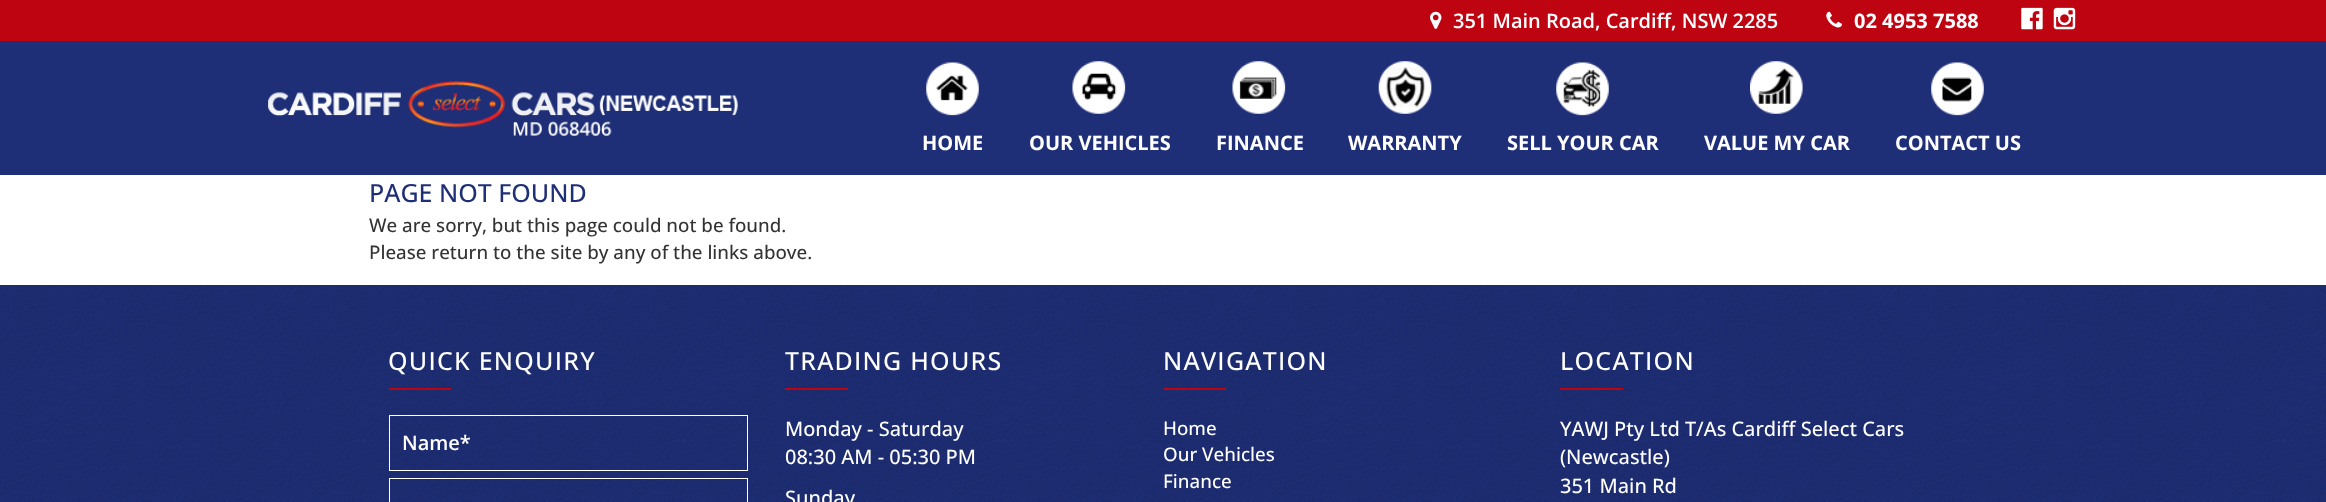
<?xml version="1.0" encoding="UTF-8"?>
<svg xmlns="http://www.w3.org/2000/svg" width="2326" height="502">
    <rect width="100%" height="100%" fill="#FFFFFF"/>
    <rect x="0" y="0" width="2326" height="41" fill="#BE0411"/>
    <image x="1430" y="11" width="12" height="18" href="img_01.png"/>
    <text x="1453" y="28" font-family="Open Sans" font-size="20" font-weight="600" fill="#FFFFFF">351 Main Road, Cardiff, NSW 2285</text>
    <image x="1826" y="11" width="16" height="17" href="img_02.png"/>
    <text x="1854" y="28" font-family="Open Sans" font-size="20" font-weight="700" fill="#FFFFFF">02 4953 7588</text>
    <image x="2021" y="7" width="22" height="23" href="img_03.png"/>
    <image x="2053" y="7" width="23" height="23" href="img_04.png"/>
    <rect x="0" y="41" width="2326" height="134" fill="#1F2F77"/>
    <image x="268" y="81" width="470" height="55" href="img_05.png"/>
    <image x="926" y="62" width="53" height="54" href="img_06.png"/>
    <text x="922" y="150" font-family="Open Sans" font-size="20" font-weight="700" fill="#FFFFFF">HOME</text>
    <image x="1072" y="61" width="54" height="53" href="img_07.png"/>
    <text x="1029" y="150" font-family="Open Sans" font-size="20" font-weight="700" fill="#FFFFFF">OUR VEHICLES</text>
    <image x="1232" y="61" width="54" height="53" href="img_08.png"/>
    <text x="1216" y="150" font-family="Open Sans" font-size="20" font-weight="700" fill="#FFFFFF">FINANCE</text>
    <image x="1378" y="61" width="54" height="53" href="img_09.png"/>
    <text x="1348" y="150" font-family="Open Sans" font-size="20" font-weight="700" fill="#FFFFFF">WARRANTY</text>
    <image x="1556" y="62" width="53" height="54" href="img_10.png"/>
    <text x="1507" y="150" font-family="Open Sans" font-size="20" font-weight="700" fill="#FFFFFF">SELL YOUR CAR</text>
    <image x="1750" y="61" width="53" height="53" href="img_11.png"/>
    <text x="1704" y="150" font-family="Open Sans" font-size="20" font-weight="700" fill="#FFFFFF">VALUE MY CAR</text>
    <image x="1931" y="62" width="53" height="54" href="img_12.png"/>
    <text x="1895" y="150" font-family="Open Sans" font-size="20" font-weight="700" fill="#FFFFFF">CONTACT US</text>
    <text x="369" y="202" font-family="Open Sans" font-size="25" font-weight="500" fill="#1F2F77">PAGE NOT FOUND</text>
    <text font-family="Open Sans" font-size="18.75" font-weight="500" fill="#333333">
        <tspan x="369" y="232">We are sorry, but this page could not be found.</tspan>
        <tspan x="369" y="259">Please return to the site by any of the links above.</tspan>
    </text>
    <rect x="0" y="285" width="2326" height="217" fill="#1F2F77"/>
    <image x="0" y="285" width="2326" height="217" href="img_13.png"/>
    <text x="388" y="370" font-family="Open Sans" font-size="25" font-weight="500" letter-spacing="1.25" fill="#FFFFFF">QUICK ENQUIRY</text>
    <rect x="389" y="388" width="62" height="2" fill="#BE0411"/>
    <rect x="389.5" y="415.5" width="358" height="55" fill="none" stroke="#FFFFFF"/>
    <text x="402" y="450" font-family="Open Sans" font-size="20" font-weight="600" fill="#FFFFFF">Name*</text>
    <rect x="389.5" y="478.5" width="358" height="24" fill="none" stroke="#FFFFFF"/>
    <text x="785" y="370" font-family="Open Sans" font-size="25" font-weight="500" letter-spacing="1.25" fill="#FFFFFF">TRADING HOURS</text>
    <rect x="785" y="388" width="63" height="2" fill="#BE0411"/>
    <text font-family="Open Sans" font-size="20" font-weight="500" fill="#FFFFFF">
        <tspan x="785" y="436">Monday - Saturday</tspan>
        <tspan x="785" y="464">08:30 AM - 05:30 PM</tspan>
    </text>
    <text x="785" y="505" font-family="Open Sans" font-size="20" font-weight="500" fill="#FFFFFF">Sunday</text>
    <text x="1163" y="370" font-family="Open Sans" font-size="25" font-weight="500" letter-spacing="1.25" fill="#FFFFFF">NAVIGATION</text>
    <rect x="1164" y="388" width="62" height="2" fill="#BE0411"/>
    <text font-family="Open Sans" font-size="18.75" font-weight="500" fill="#FFFFFF">
        <tspan x="1163" y="435">Home</tspan>
        <tspan x="1163" y="461">Our Vehicles</tspan>
        <tspan x="1163" y="488">Finance</tspan>
    </text>
    <text x="1560" y="370" font-family="Open Sans" font-size="25" font-weight="500" letter-spacing="1.25" fill="#FFFFFF">LOCATION</text>
    <rect x="1560" y="388" width="63" height="2" fill="#BE0411"/>
    <text font-family="Open Sans" font-size="20" font-weight="500" fill="#FFFFFF">
        <tspan x="1560" y="436">YAWJ Pty Ltd T/As Cardiff Select Cars</tspan>
        <tspan x="1560" y="464">(Newcastle)</tspan>
        <tspan x="1560" y="493">351 Main Rd</tspan>
    </text>
</svg>
